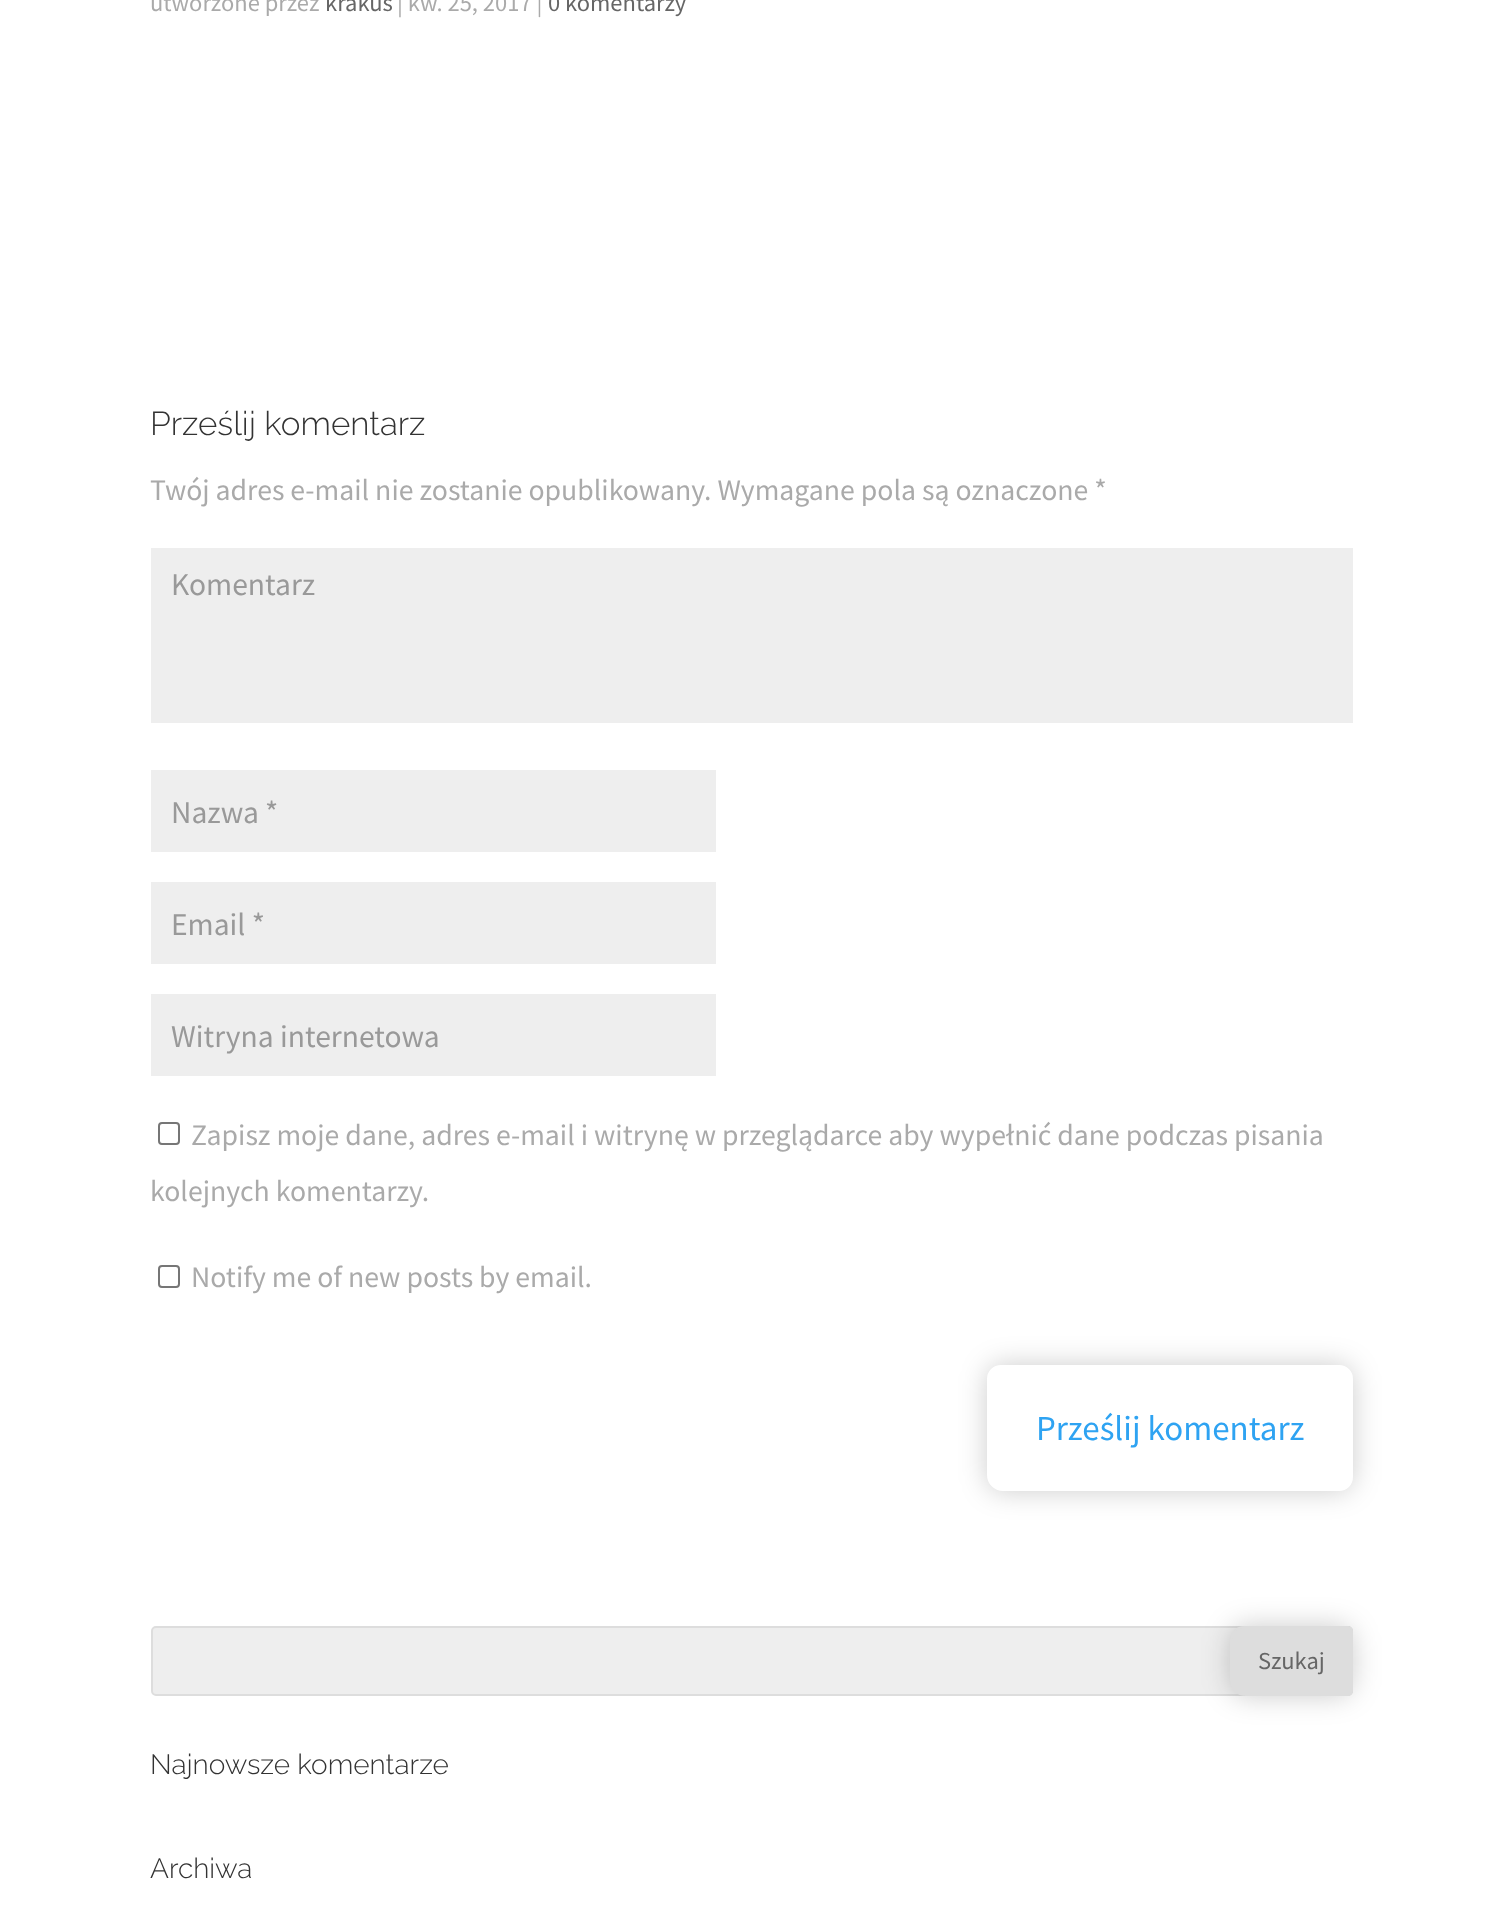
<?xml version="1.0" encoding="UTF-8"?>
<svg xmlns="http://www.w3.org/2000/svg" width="1503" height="1906">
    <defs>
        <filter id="blur1" x="-50%" y="-200%" width="200%" height="500%"><feGaussianBlur stdDeviation="14"/></filter>
    </defs>
    <rect width="100%" height="100%" fill="#FFFFFF"/>
    <text x="150" y="11" font-family="Source Sans Pro" font-size="24.5" fill="#AAAAAA">utworzone przez</text>
    <text x="325" y="11" font-family="Source Sans Pro" font-size="24.5" fill="#666666">krakus</text>
    <text x="397" y="11" font-family="Source Sans Pro" font-size="24.5" fill="#AAAAAA">| kw. 25, 2017 |</text>
    <text x="548" y="11" font-family="Source Sans Pro" font-size="24.5" fill="#666666">0 komentarzy</text>
    <text x="150" y="435" font-family="Raleway" font-size="33.25" font-weight="300" fill="#333333">Prześlij komentarz</text>
    <text x="150" y="500" font-family="Source Sans Pro" font-size="29.75" fill="#AAAAAA">Twój adres e-mail nie zostanie opublikowany. Wymagane pola są oznaczone *</text>
    <rect x="151" y="548" width="1202" height="175" fill="#EEEEEE"/>
    <text x="171" y="595" font-family="Source Sans Pro" font-size="31.5" fill="#999999">Komentarz</text>
    <rect x="151" y="770" width="565" height="82" fill="#EEEEEE"/>
    <text x="171" y="823" font-family="Source Sans Pro" font-size="31.5" fill="#999999">Nazwa *</text>
    <rect x="151" y="882" width="565" height="82" fill="#EEEEEE"/>
    <text x="171" y="935" font-family="Source Sans Pro" font-size="31.5" fill="#999999">Email *</text>
    <rect x="151" y="994" width="565" height="82" fill="#EEEEEE"/>
    <text x="171" y="1047" font-family="Source Sans Pro" font-size="31.5" fill="#999999">Witryna internetowa</text>
    <rect x="159" y="1123" width="20" height="21" rx="3" fill="none" stroke="#767676" stroke-width="2"/>
    <text x="191" y="1145" font-family="Source Sans Pro" font-size="29.75" fill="#AAAAAA">Zapisz moje dane, adres e-mail i witrynę w przeglądarce aby wypełnić dane podczas pisania</text>
    <text x="150" y="1201" font-family="Source Sans Pro" font-size="29.75" fill="#AAAAAA">kolejnych komentarzy.</text>
    <rect x="159" y="1266" width="20" height="21" rx="3" fill="none" stroke="#767676" stroke-width="2"/>
    <text x="191" y="1287" font-family="Source Sans Pro" font-size="29.75" fill="#AAAAAA">Notify me of new posts by email.</text>
    <rect x="987" y="1365" width="366" height="126" rx="16" fill="#000000" fill-opacity="0.2" filter="url(#blur1)"/>
    <path d="M 1001 1372 H 1339 C 1343 1372 1346 1375 1346 1379 V 1477 C 1346 1481 1343 1484 1339 1484 H 1003 C 998 1484 994 1480 994 1475 V 1379 C 994 1375 997 1372 1001 1372 Z" fill="#FFFFFF" stroke="#FFFFFF" stroke-width="14"/>
    <text x="1036" y="1440" font-family="Source Sans Pro" font-size="35" fill="#2EA3F2">Prześlij komentarz</text>
    <rect x="152" y="1627" width="1200" height="68" rx="4" fill="#EEEEEE" stroke="#DDDDDD" stroke-width="2"/>
    <rect x="1230" y="1626" width="123" height="70" rx="16" fill="#000000" fill-opacity="0.2" filter="url(#blur1)"/>
    <path d="M 1244 1627 H 1348 C 1350 1627 1352 1629 1352 1631 V 1691 C 1352 1693 1350 1695 1348 1695 H 1246 C 1237.5 1695 1231 1688.5 1231 1680 V 1640 C 1231 1633 1237 1627 1244 1627 Z" fill="#DDDDDD" stroke="#DDDDDD" stroke-width="2"/>
    <text x="1258" y="1669" font-family="Source Sans Pro" font-size="24.5" fill="#666666">Szukaj</text>
    <text x="150" y="1774" font-family="Raleway" font-size="28" font-weight="300" fill="#333333">Najnowsze komentarze</text>
    <text x="150" y="1878" font-family="Raleway" font-size="28" font-weight="300" fill="#333333">Archiwa</text>
</svg>
